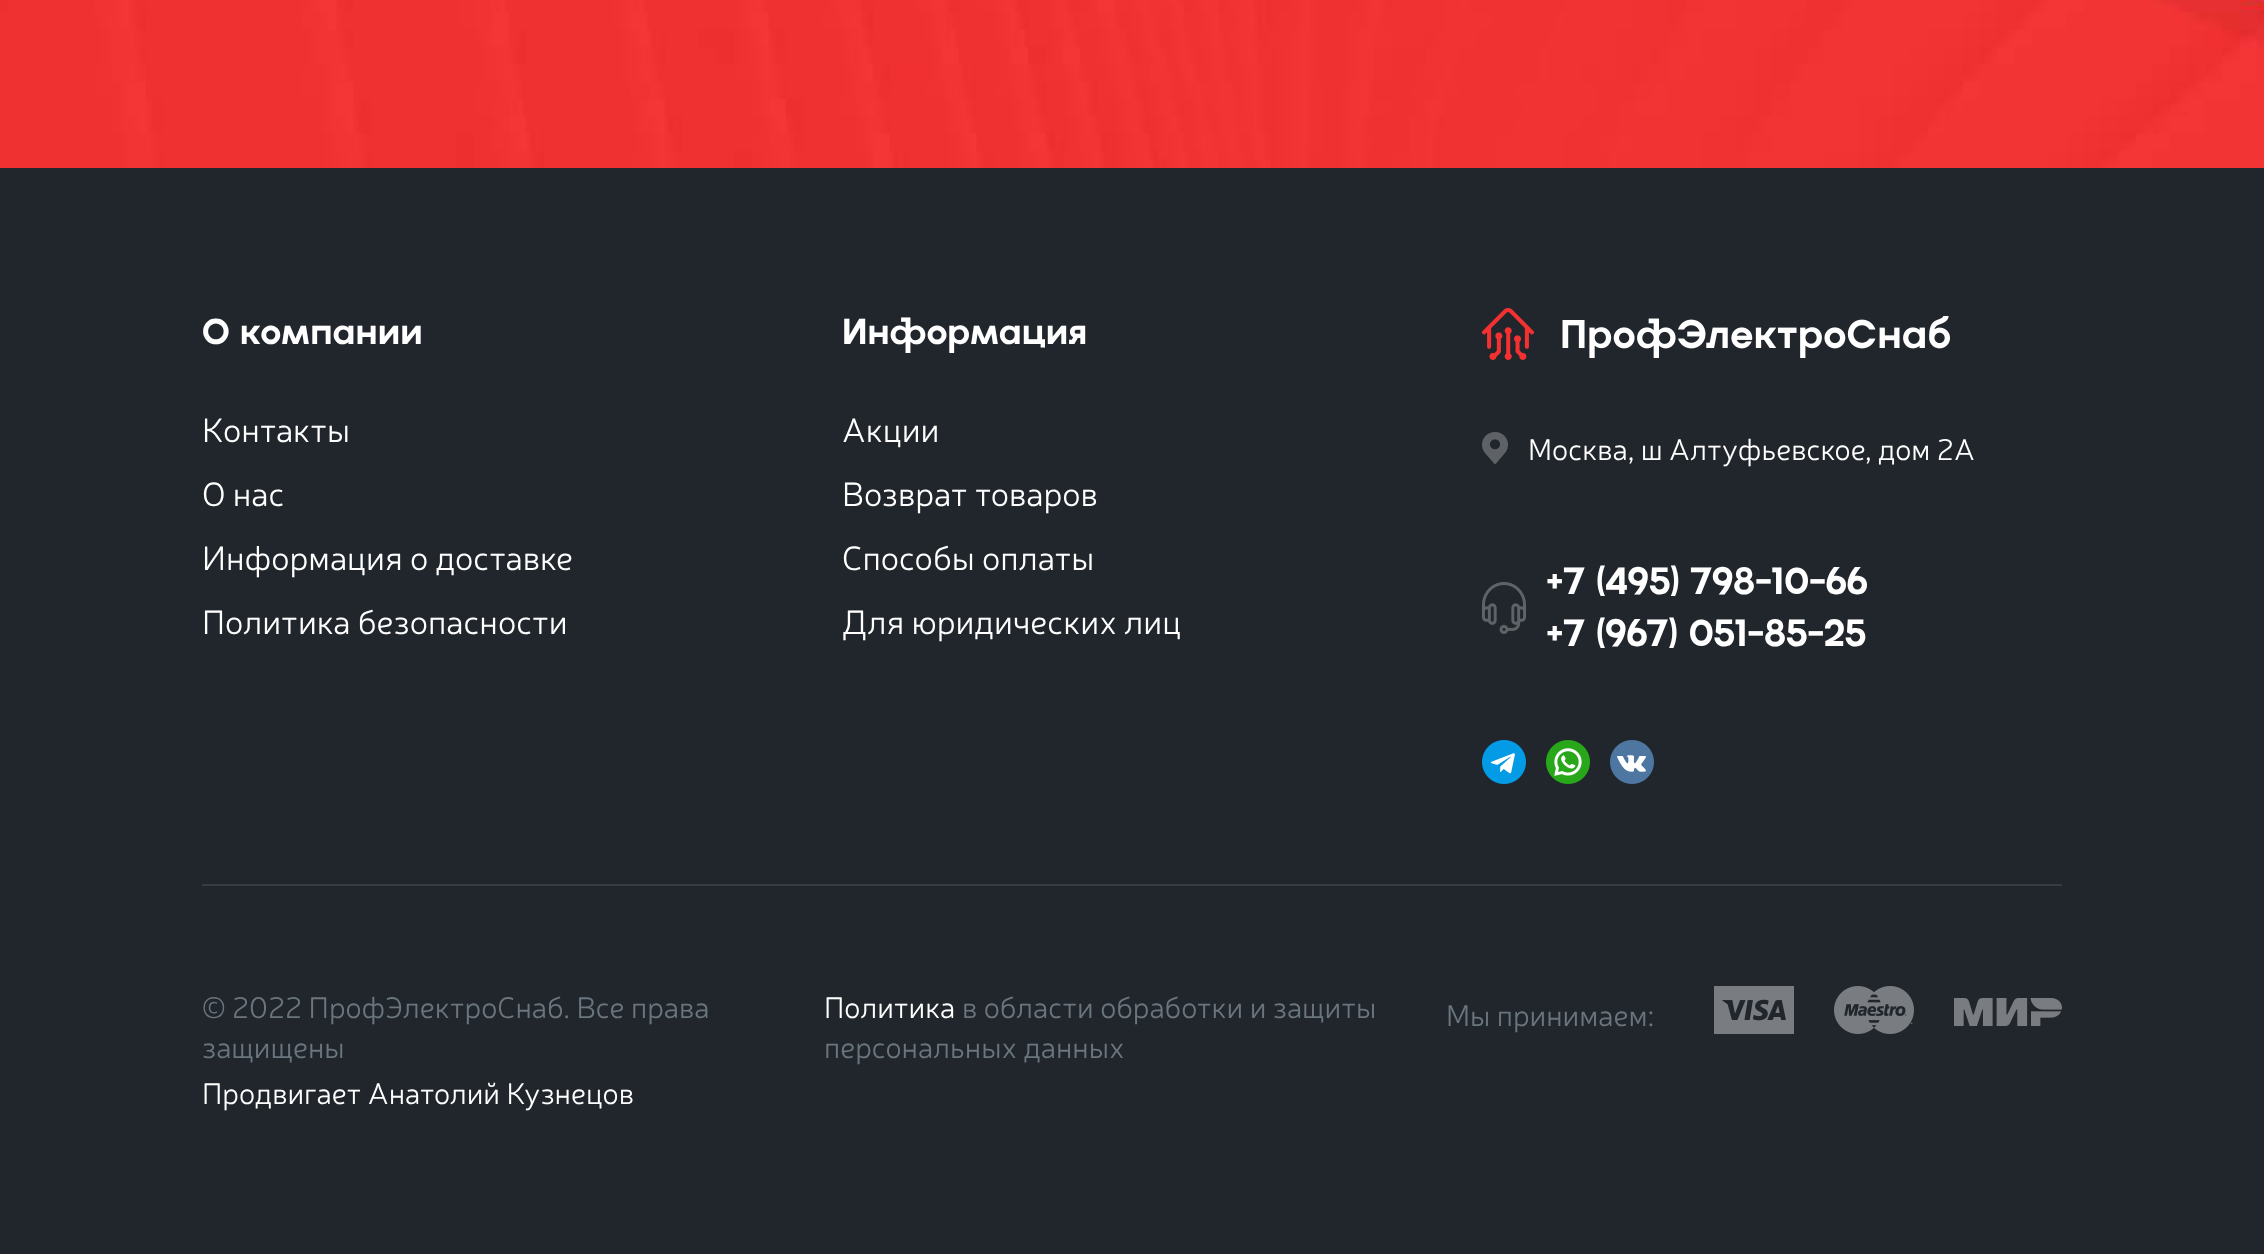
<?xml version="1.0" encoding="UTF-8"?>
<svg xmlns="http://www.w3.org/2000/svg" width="2264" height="1254">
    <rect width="100%" height="100%" fill="#FFFFFF"/>
    <image x="0" y="0" width="2264" height="168" href="img_01.png"/>
    <rect x="0" y="168" width="2264" height="1086" fill="#20262C"/>
    <text x="202" y="344" font-family="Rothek" font-size="36" font-weight="700" fill="#FFFFFF">О компании</text>
    <text font-family="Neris" font-size="34" font-weight="300" fill="#FFFFFF">
        <tspan x="202" y="442">Контакты</tspan>
        <tspan x="202" y="506">О нас</tspan>
        <tspan x="202" y="570">Информация о доставке</tspan>
        <tspan x="202" y="634">Политика безопасности</tspan>
    </text>
    <text x="842" y="344" font-family="Rothek" font-size="36" font-weight="700" fill="#FFFFFF">Информация</text>
    <text font-family="Neris" font-size="34" font-weight="300" fill="#FFFFFF">
        <tspan x="842" y="442">Акции</tspan>
        <tspan x="842" y="506">Возврат товаров</tspan>
        <tspan x="842" y="570">Способы оплаты</tspan>
        <tspan x="842" y="634">Для юридических лиц</tspan>
    </text>
    <image x="1482" y="308" width="468" height="52" href="img_02.png"/>
    <image x="1482" y="432" width="26" height="32" href="img_03.png"/>
    <text x="1528" y="460" font-family="Neris" font-size="30" font-weight="300" fill="#FFFFFF">Москва, ш Алтуфьевское, дом 2А</text>
    <image x="1482" y="582" width="44" height="52" href="img_04.png"/>
    <text font-family="Rothek" font-size="38" font-weight="700" fill="#FFFFFF">
        <tspan x="1546" y="594">+7 (495) 798-10-66</tspan>
        <tspan x="1546" y="646">+7 (967) 051-85-25</tspan>
    </text>
    <image x="1482" y="740" width="44" height="44" href="img_05.png"/>
    <image x="1546" y="740" width="44" height="44" href="img_06.png"/>
    <image x="1610" y="740" width="44" height="44" href="img_07.png"/>
    <rect x="202" y="884" width="1860" height="2" fill="#363C41"/>
    <text font-family="Neris" font-size="30" font-weight="300" fill="#6B757E">
        <tspan x="202" y="1018">© 2022 ПрофЭлектроСнаб. Все права</tspan>
        <tspan x="202" y="1058">защищены</tspan>
    </text>
    <text x="202" y="1104" font-family="Neris" font-size="30" font-weight="300" fill="#FFFFFF">Продвигает Анатолий Кузнецов</text>
    <text x="824" y="1018" font-family="Neris" font-size="30" font-weight="300" fill="#FFFFFF">Политика</text>
    <text x="962" y="1018" font-family="Neris" font-size="30" font-weight="300" fill="#6B757E">в области обработки и защиты</text>
    <text x="824" y="1058" font-family="Neris" font-size="30" font-weight="300" fill="#6B757E">персональных данных</text>
    <text x="1446" y="1026" font-family="Neris" font-size="30" font-weight="300" fill="#6B757E">Мы принимаем:</text>
    <image x="1714" y="986" width="80" height="48" href="img_08.png"/>
    <image x="1834" y="986" width="80" height="48" href="img_09.png"/>
    <image x="1954" y="998" width="108" height="28" href="img_10.png"/>
</svg>
